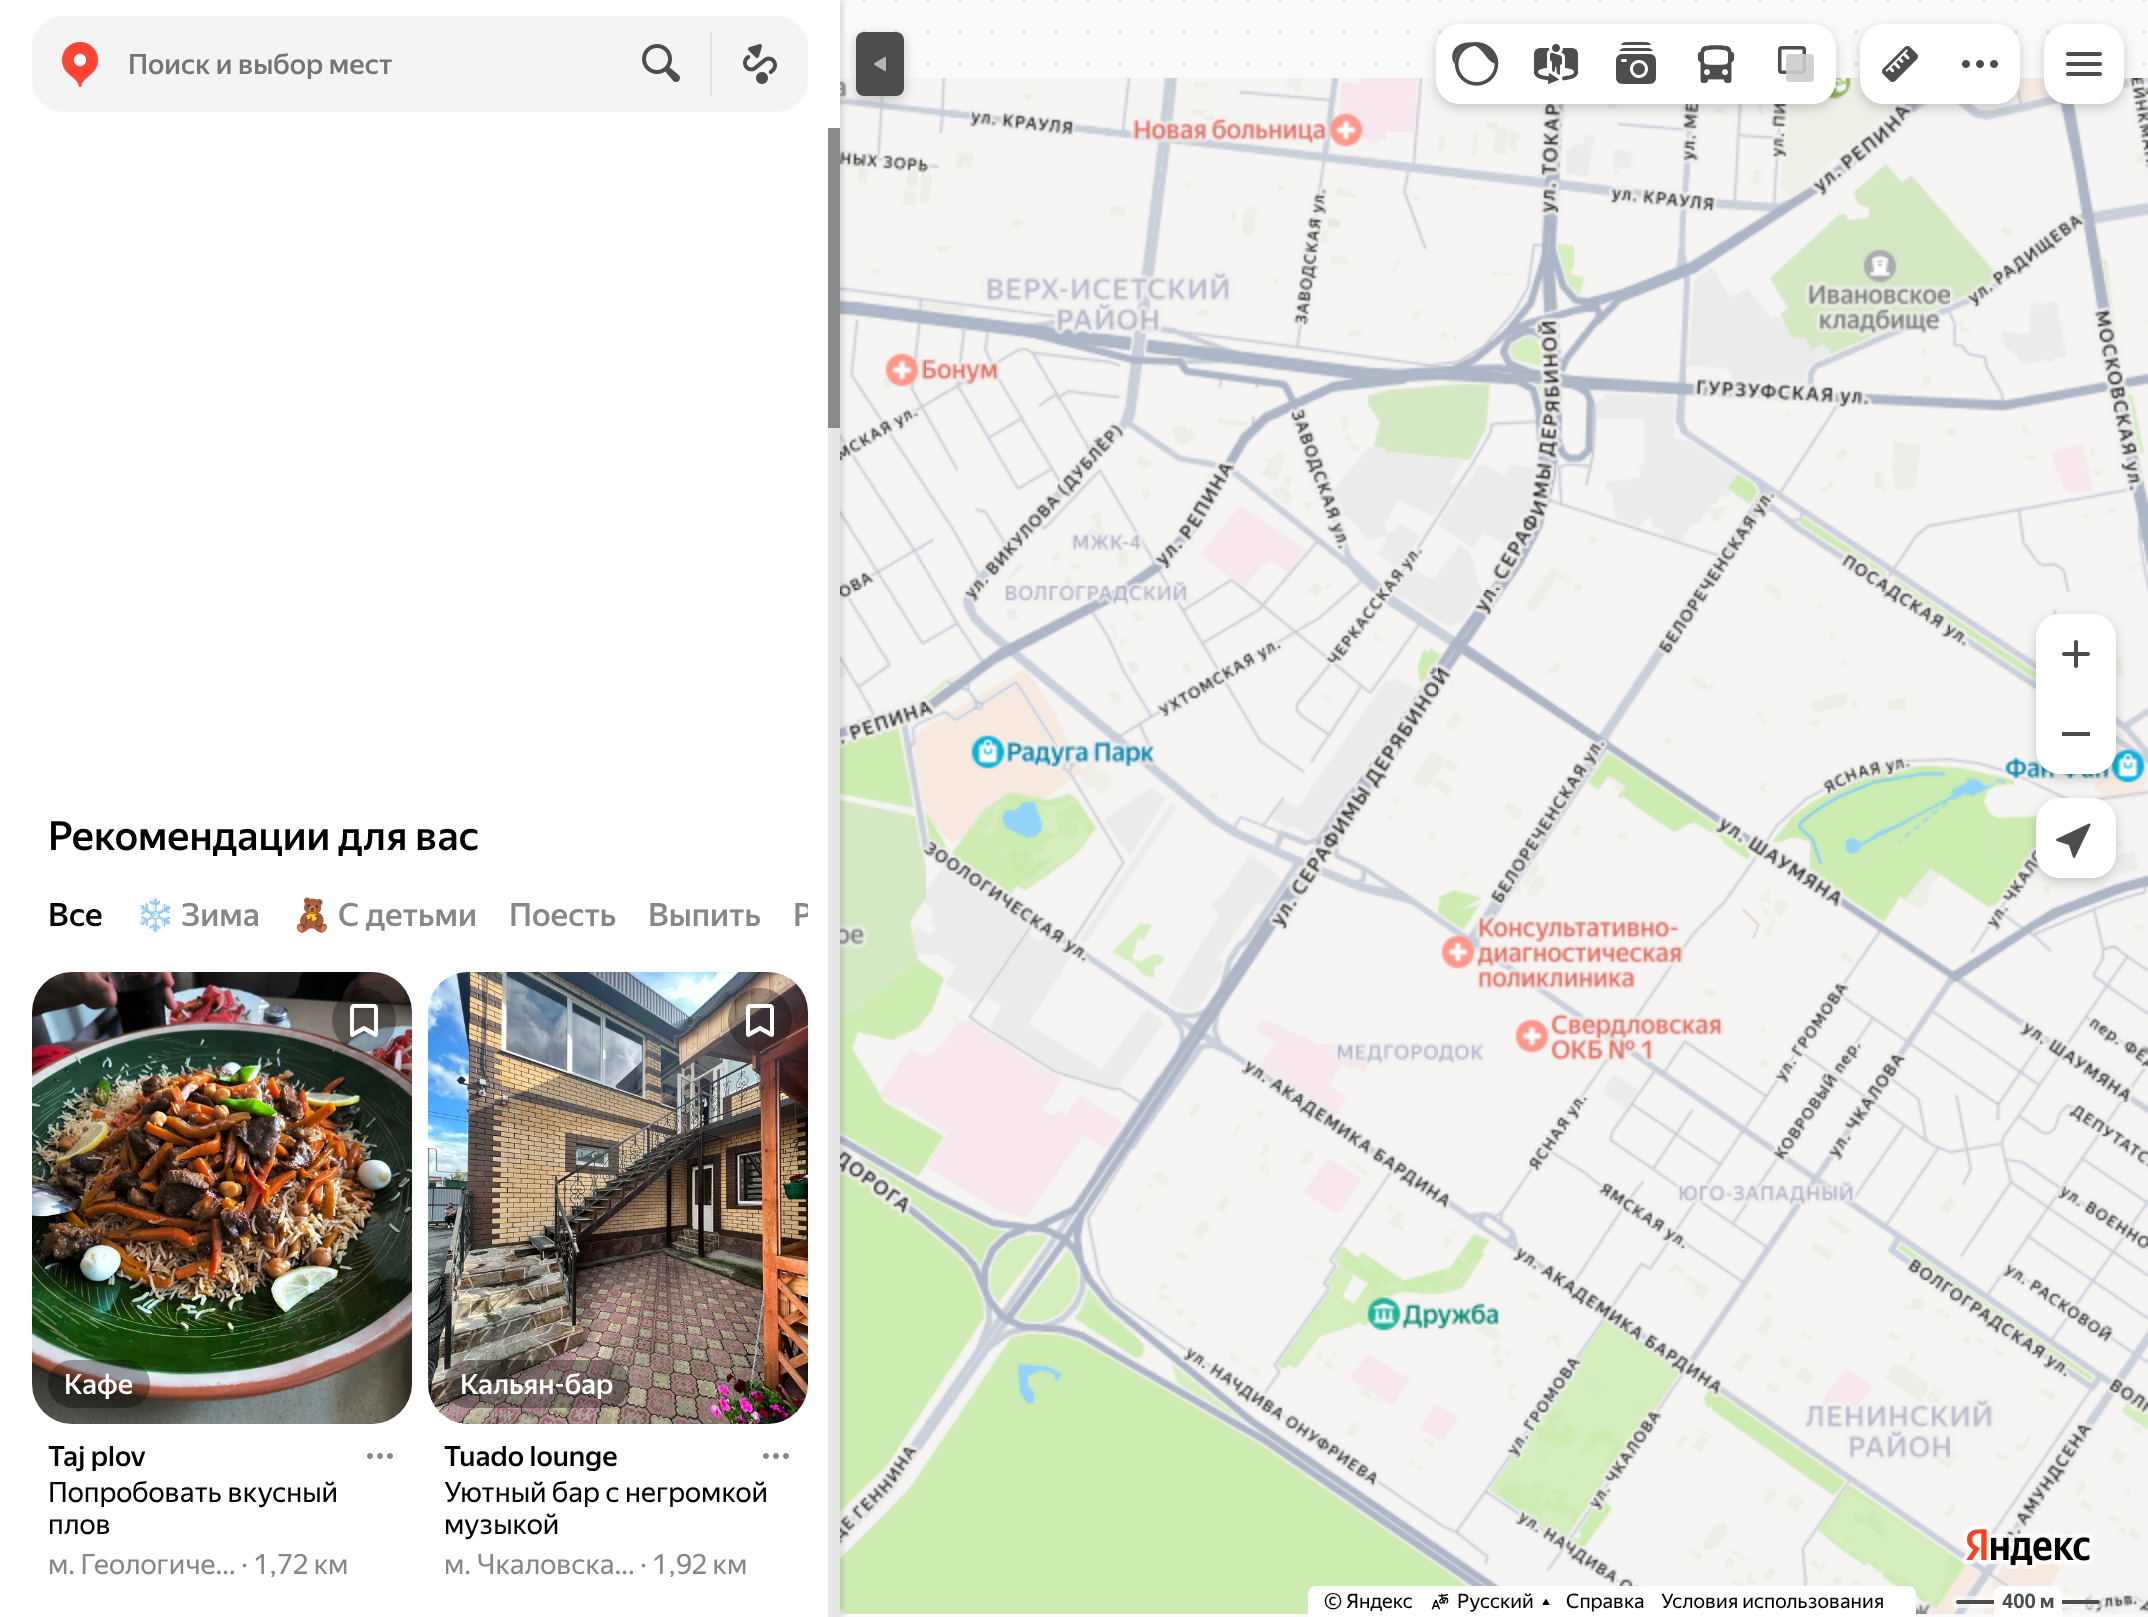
<?xml version="1.0" encoding="UTF-8"?>
<svg xmlns="http://www.w3.org/2000/svg" width="2148" height="1617">
    <defs>
        <filter id="blur1" x="-50%" y="-200%" width="200%" height="500%"><feGaussianBlur stdDeviation="2"/></filter>
        <filter id="blur2" x="-50%" y="-200%" width="200%" height="500%"><feGaussianBlur stdDeviation="6"/></filter>
        <clipPath id="clip1"><rect x="32" y="876" width="776" height="80"/></clipPath>
    </defs>
    <rect width="100%" height="100%" fill="#FFFFFF"/>
    <image x="840" y="0" width="1308" height="1617" href="img_01.png"/>
    <image x="840" y="78" width="86" height="512" href="img_24.png"/>
    <image x="840" y="590" width="86" height="512" href="img_28.png"/>
    <image x="840" y="1102" width="86" height="512" href="img_32.png"/>
    <rect x="4" y="0" width="840" height="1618" fill="#000000" fill-opacity="0.1" filter="url(#blur1)"/>
    <rect x="856" y="36" width="48" height="64" rx="8" fill="#000000" fill-opacity="0.2" filter="url(#blur2)"/>
    <rect x="1" y="0" width="839" height="1617" fill="#FFFFFF"/>
    <rect x="32" y="16" width="776" height="96" rx="32" fill="#F4F4F4"/>
    <image x="62" y="42" width="36" height="45" href="img_02.png"/>
    <text x="128" y="74" font-family="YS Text" font-size="28" font-weight="500" fill="#757575">Поиск и выбор мест</text>
    <image x="642" y="44" width="38" height="38" href="img_03.png"/>
    <rect x="710" y="32" width="2" height="64" fill="#E0E0E0"/>
    <image x="743" y="44" width="34" height="40" href="img_04.png"/>
    <image x="926" y="78" width="512" height="512" href="img_25.png"/>
    <image x="1438" y="78" width="512" height="512" href="img_26.png"/>
    <rect x="1436" y="28" width="400" height="80" rx="24" fill="#000000" fill-opacity="0.2" filter="url(#blur2)"/>
    <path d="M 1460 24 H 1516 V 104 H 1460 C 1446.5 104 1436 93.5 1436 80 V 48 C 1436 34.5 1446.5 24 1460 24 Z" fill="#FFFFFF"/>
    <image x="1452" y="42" width="47" height="44" href="img_05.png"/>
    <rect x="1516" y="24" width="240" height="80" fill="#FFFFFF"/>
    <image x="1534" y="44" width="44" height="40" href="img_06.png"/>
    <path d="M 1756 24 H 1812 C 1825.5 24 1836 34.5 1836 48 V 80 C 1836 93.5 1825.5 104 1812 104 H 1756 Z" fill="#FFFFFF"/>
    <image x="1778" y="46" width="36" height="36" href="img_07.png"/>
    <image x="1616" y="42" width="40" height="42" href="img_08.png"/>
    <image x="1698" y="45" width="36" height="38" href="img_09.png"/>
    <image x="1950" y="78" width="198" height="512" href="img_27.png"/>
    <rect x="1860" y="28" width="160" height="80" rx="24" fill="#000000" fill-opacity="0.2" filter="url(#blur2)"/>
    <path d="M 1884 24 H 1940 V 104 H 1884 C 1870.5 104 1860 93.5 1860 80 V 48 C 1860 34.5 1870.5 24 1884 24 Z" fill="#FFFFFF"/>
    <image x="1882" y="46" width="36" height="36" href="img_10.png"/>
    <path d="M 1940 24 H 1996 C 2009.5 24 2020 34.5 2020 48 V 80 C 2020 93.5 2009.5 104 1996 104 H 1940 Z" fill="#FFFFFF"/>
    <image x="1962" y="60" width="36" height="8" href="img_11.png"/>
    <rect x="2044" y="28" width="80" height="80" rx="24" fill="#000000" fill-opacity="0.2" filter="url(#blur2)"/>
    <rect x="2044" y="24" width="80" height="80" rx="24" fill="#FFFFFF"/>
    <image x="2066" y="52" width="36" height="24" href="img_12.png"/>
    <image x="1950" y="590" width="198" height="512" href="img_31.png"/>
    <rect x="2036" y="618" width="80" height="160" rx="24" fill="#000000" fill-opacity="0.2" filter="url(#blur2)"/>
    <path d="M 2060 614 H 2092 C 2105.5 614 2116 624.5 2116 638 V 694 H 2036 V 638 C 2036 624.5 2046.5 614 2060 614 Z" fill="#FFFFFF"/>
    <image x="2062" y="640" width="28" height="28" href="img_13.png"/>
    <path d="M 2036 694 H 2116 V 750 C 2116 763.5 2105.5 774 2092 774 H 2060 C 2046.5 774 2036 763.5 2036 750 Z" fill="#FFFFFF"/>
    <rect x="2062" y="732" width="28" height="4" fill="#4D4D4D"/>
    <rect x="2036" y="802" width="80" height="80" rx="24" fill="#000000" fill-opacity="0.2" filter="url(#blur2)"/>
    <rect x="2036" y="798" width="80" height="80" rx="24" fill="#FFFFFF"/>
    <image x="2056" y="823" width="35" height="35" href="img_14.png"/>
    <rect x="856" y="32" width="48" height="64" rx="8" fill="#4D4D4D"/>
    <image x="874" y="57" width="12" height="14" href="img_15.png"/>
    <text x="48" y="850" font-family="YS Text" font-size="40" font-weight="500" fill="#000000">Рекомендации для вас</text>
    <text x="48" y="926" font-family="YS Text" font-size="32" font-weight="500" fill="#000000">Все</text>
    <text x="135" y="926" font-family="Noto Color Emoji" font-size="32" fill="#878787">❄️</text>
    <text x="181" y="926" font-family="YS Text" font-size="32" font-weight="500" fill="#878787">Зима</text>
    <text x="292" y="926" font-family="Noto Color Emoji" font-size="32" fill="#878787">🧸</text>
    <text x="338" y="926" font-family="YS Text" font-size="32" font-weight="500" fill="#878787">С детьми</text>
    <text x="509" y="926" font-family="YS Text" font-size="32" font-weight="500" fill="#878787">Поесть</text>
    <text x="648" y="926" font-family="YS Text" font-size="32" font-weight="500" fill="#878787">Выпить</text>
    <g clip-path="url(#clip1)">
        <text x="793" y="926" font-family="YS Text" font-size="32" font-weight="500" fill="#878787">Р</text>
    </g>
    <rect x="32" y="972" width="380" height="452" rx="40" fill="#F4F4F4"/>
    <image x="32" y="972" width="380" height="452" href="img_16.png"/>
    <circle cx="364" cy="1020" r="32" fill="#000000" fill-opacity="0.32"/>
    <image x="350" y="1004" width="28" height="33" href="img_17.png"/>
    <rect x="48" y="1360" width="102" height="48" rx="24" fill="#000000" fill-opacity="0.32"/>
    <text x="64" y="1394" font-family="YS Text" font-size="28" font-weight="500" fill="#FFFFFF">Кафе</text>
    <text x="48" y="1466" font-family="YS Text" font-size="28" font-weight="500" fill="#000000">Taj plov</text>
    <image x="367" y="1453" width="26" height="6" href="img_18.png"/>
    <text font-family="YS Text" font-size="28" fill="#000000">
        <tspan x="48" y="1502">Попробовать вкусный</tspan>
        <tspan x="48" y="1534">плов</tspan>
    </text>
    <text x="48" y="1574" font-family="YS Text" font-size="28" fill="#878787">м. Геологиче… · 1,72 км</text>
    <rect x="428" y="972" width="380" height="452" rx="40" fill="#F4F4F4"/>
    <image x="428" y="972" width="380" height="452" href="img_19.png"/>
    <circle cx="760" cy="1020" r="32" fill="#000000" fill-opacity="0.32"/>
    <image x="746" y="1004" width="28" height="33" href="img_20.png"/>
    <rect x="444" y="1360" width="186" height="48" rx="24" fill="#000000" fill-opacity="0.32"/>
    <text x="460" y="1394" font-family="YS Text" font-size="28" font-weight="500" fill="#FFFFFF">Кальян-бар</text>
    <text x="444" y="1466" font-family="YS Text" font-size="28" font-weight="500" fill="#000000">Tuado lounge</text>
    <image x="763" y="1453" width="26" height="6" href="img_18.png"/>
    <text font-family="YS Text" font-size="28" fill="#000000">
        <tspan x="444" y="1502">Уютный бар с негромкой</tspan>
        <tspan x="444" y="1534">музыкой</tspan>
    </text>
    <text x="444" y="1574" font-family="YS Text" font-size="28" fill="#878787">м. Чкаловска… · 1,92 км</text>
    <rect x="828" y="128" width="12" height="300" fill="#8A8A8A"/>
    <rect x="828" y="428" width="12" height="1189" fill="#E6E6E6"/>
    <image x="1950" y="1102" width="198" height="512" href="img_35.png"/>
    <image x="1962" y="1525" width="131" height="44" href="img_21.png"/>
    <image x="926" y="1102" width="512" height="512" href="img_33.png"/>
    <image x="1438" y="1102" width="512" height="512" href="img_34.png"/>
    <path d="M 1316 1586 H 1908 C 1912.5 1586 1916 1589.5 1916 1594 V 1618 H 1308 V 1594 C 1308 1589.5 1311.5 1586 1316 1586 Z" fill="#FFFFFF"/>
    <text x="1324" y="1608" font-family="YS Text" font-size="20" fill="#000000">© Яндекс</text>
    <image x="1431" y="1593" width="18" height="17" href="img_22.png"/>
    <text x="1457" y="1608" font-family="YS Text" font-size="20" fill="#000000">Русский</text>
    <image x="1542" y="1599" width="8" height="6" href="img_23.png"/>
    <text x="1566" y="1608" font-family="YS Text" font-size="20" fill="#000000">Справка</text>
    <text x="1661" y="1608" font-family="YS Text" font-size="20" fill="#000000">Условия использования</text>
    <rect x="1952" y="1596" width="152" height="12" rx="6" fill="#FFFFFF" fill-opacity="0.6"/>
    <rect x="1956" y="1600" width="144" height="4" rx="2" fill="#4D4D4D"/>
    <path d="M 2002 1586 H 2054 C 2058.5 1586 2062 1589.5 2062 1594 V 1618 H 1994 V 1594 C 1994 1589.5 1997.5 1586 2002 1586 Z" fill="#FFFFFF"/>
    <text x="2002" y="1608" font-family="YS Text" font-size="20" font-weight="700" fill="#4D4D4D">400 м</text>
    <image x="926" y="590" width="512" height="512" href="img_29.png"/>
    <image x="1438" y="590" width="512" height="512" href="img_30.png"/>
</svg>
